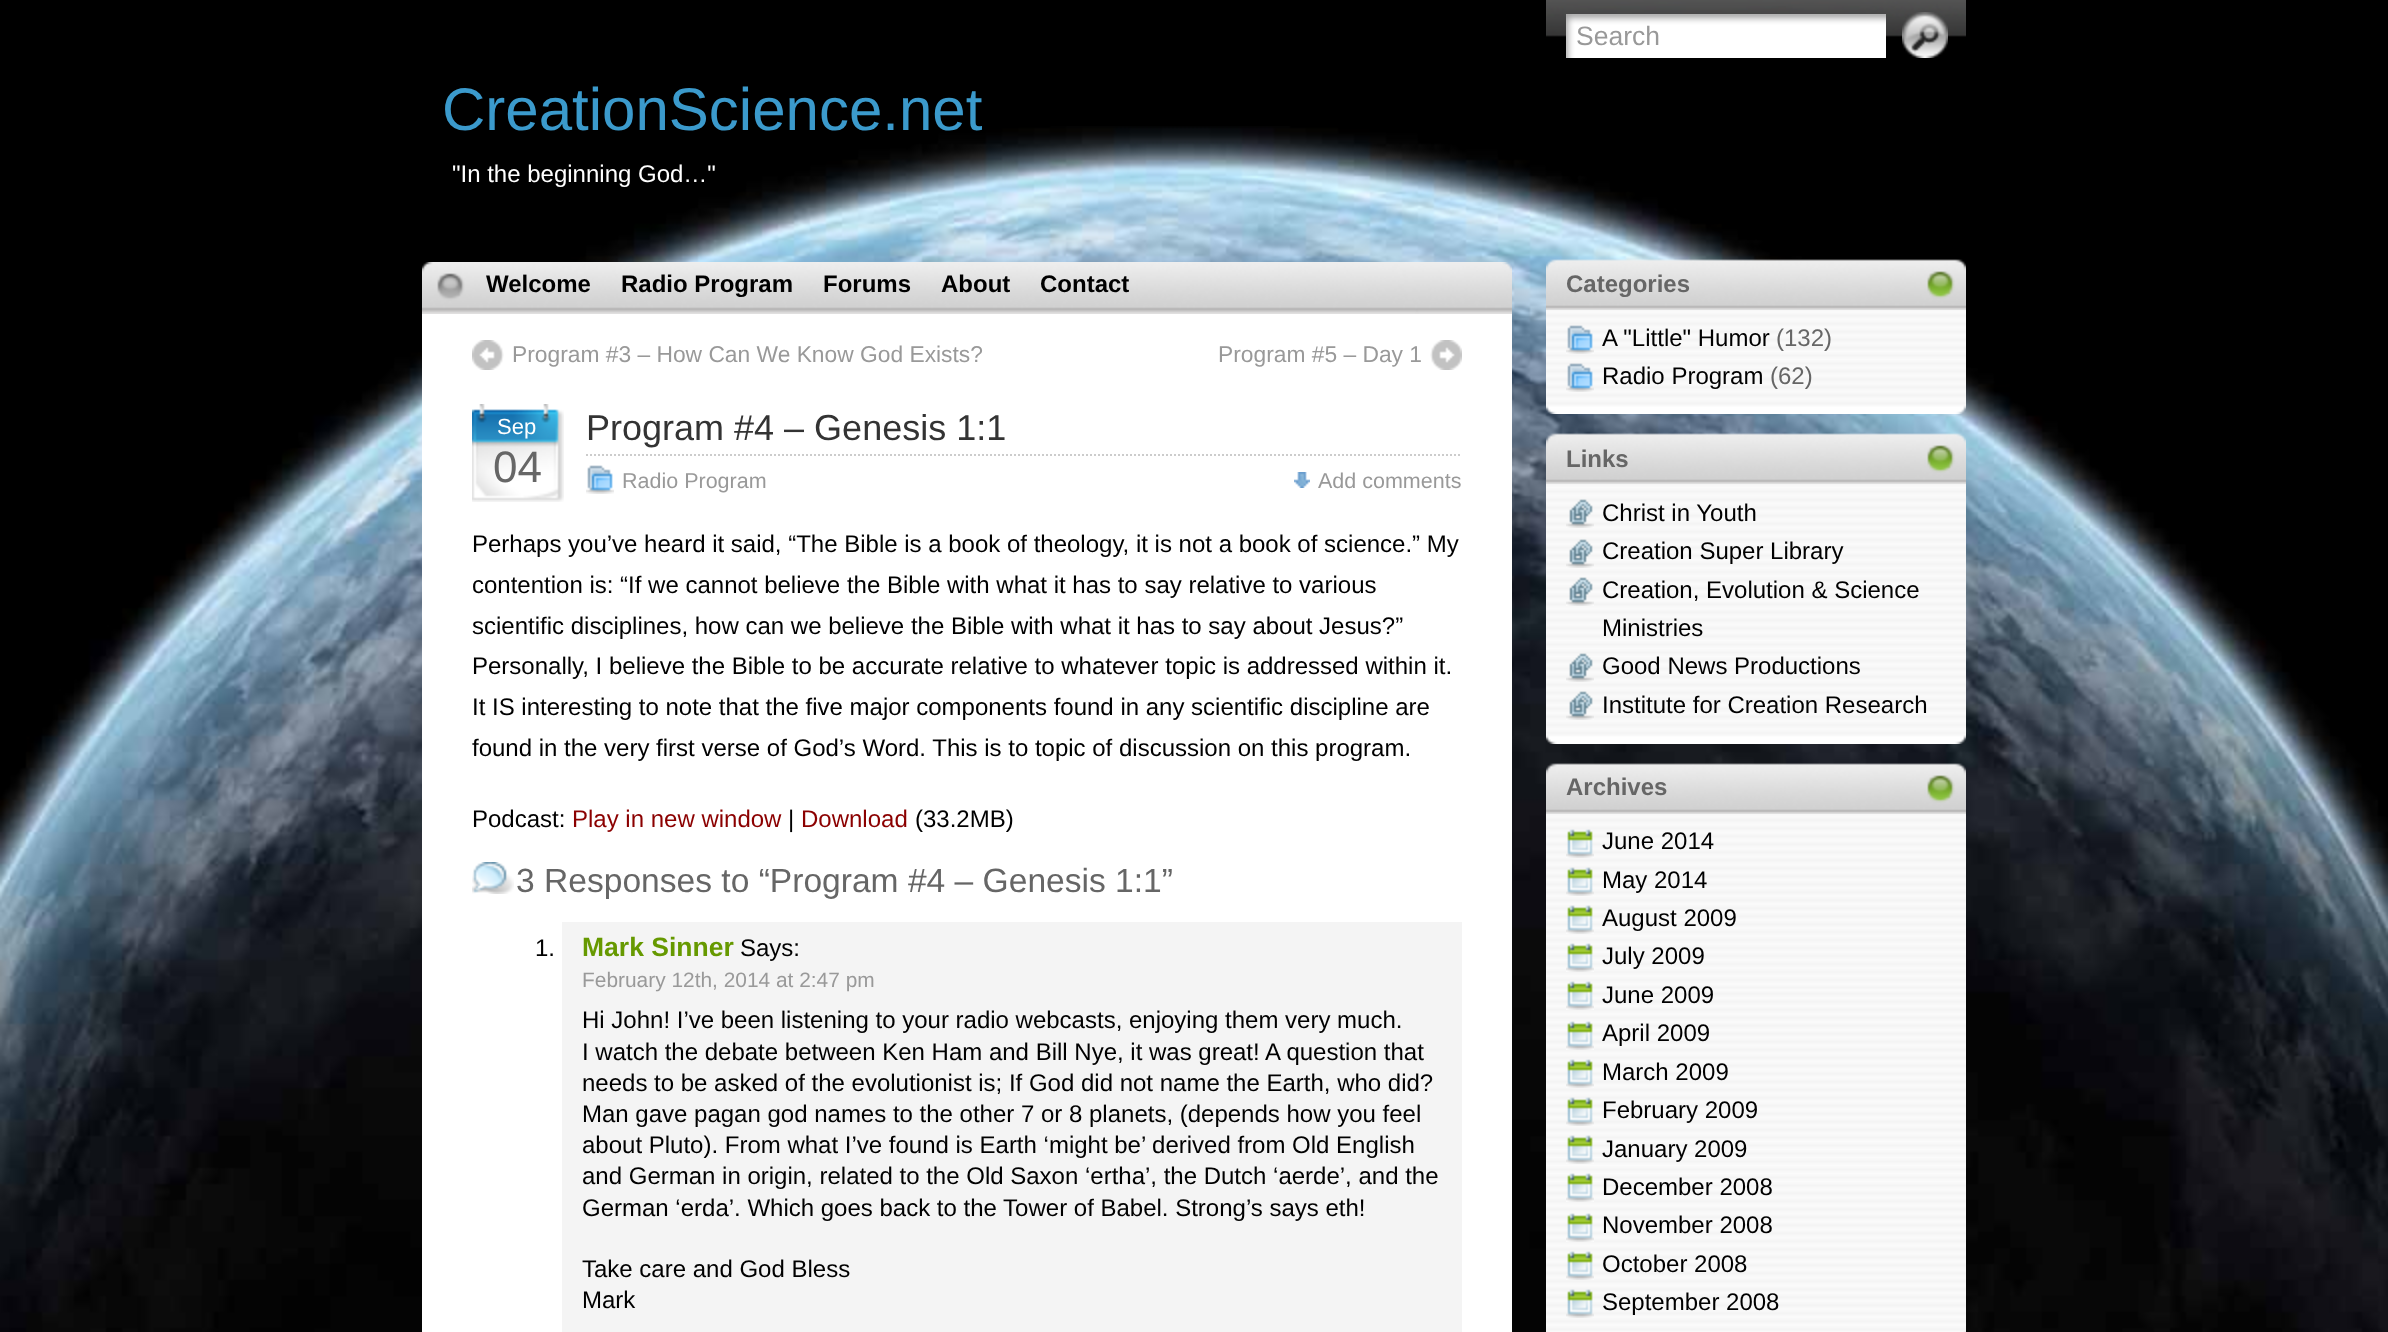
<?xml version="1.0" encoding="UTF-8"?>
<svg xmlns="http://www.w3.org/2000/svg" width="2388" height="1332">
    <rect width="100%" height="100%" fill="#000000"/>
    <image x="0" y="126" width="2388" height="1206" href="img_01.png"/>
    <image x="1546" y="0" width="420" height="37" href="img_02.png"/>
    <image x="1566" y="14" width="320" height="44" href="img_03.png"/>
    <text x="1576" y="45" font-family="Liberation Sans" font-size="26.5" fill="#999999">Search</text>
    <image x="1902" y="12" width="46" height="46" href="img_04.png"/>
    <text x="442" y="130" font-family="Liberation Sans" font-size="60" fill="#3B9ACC">CreationScience.net</text>
    <text x="452" y="182" font-family="Liberation Sans" font-size="24" fill="#FFFFFF">"In the beginning God…"</text>
    <image x="422" y="262" width="1090" height="52" href="img_05.png"/>
    <text x="486" y="292" font-family="Liberation Sans" font-size="24" font-weight="700" fill="#000000">Welcome</text>
    <text x="621" y="292" font-family="Liberation Sans" font-size="24" font-weight="700" fill="#000000">Radio Program</text>
    <text x="823" y="292" font-family="Liberation Sans" font-size="24" font-weight="700" fill="#000000">Forums</text>
    <text x="941" y="292" font-family="Liberation Sans" font-size="24" font-weight="700" fill="#000000">About</text>
    <text x="1040" y="292" font-family="Liberation Sans" font-size="24" font-weight="700" fill="#000000">Contact</text>
    <rect x="422" y="314" width="1090" height="1018" fill="#FFFFFF"/>
    <image x="472" y="340" width="32" height="30" href="img_06.png"/>
    <text x="512" y="362" font-family="Liberation Sans" font-size="22.8" fill="#999999">Program #3 – How Can We Know God Exists?</text>
    <image x="1430" y="340" width="32" height="30" href="img_07.png"/>
    <text x="1218" y="362" font-family="Liberation Sans" font-size="22.8" fill="#999999">Program #5 – Day 1</text>
    <image x="472" y="404" width="92" height="98" href="img_08.png"/>
    <text x="497" y="434" font-family="Liberation Sans" font-size="22" fill="#FFFFFF">Sep</text>
    <text x="493" y="482" font-family="Liberation Sans" font-size="44" fill="#666666">04</text>
    <path d="M 586 455 H 1462" fill="none" stroke="#CCCCCC" stroke-width="2" stroke-dasharray="2 2"/>
    <text x="586" y="440" font-family="Liberation Sans" font-size="36" fill="#333333">Program #4 – Genesis 1:1</text>
    <image x="586" y="465" width="28" height="29" href="img_09.png"/>
    <text x="622" y="488" font-family="Liberation Sans" font-size="21.5" fill="#999999">Radio Program</text>
    <image x="1294" y="472" width="16" height="16" href="img_10.png"/>
    <text x="1318" y="488" font-family="Liberation Sans" font-size="21.5" fill="#999999">Add comments</text>
    <text font-family="Liberation Sans" font-size="24" fill="#000000">
        <tspan x="472" y="552">Perhaps you’ve heard it said, “The Bible is a book of theology, it is not a book of science.” My</tspan>
        <tspan x="472" y="593">contention is: “If we cannot believe the Bible with what it has to say relative to various</tspan>
        <tspan x="472" y="634">scientific disciplines, how can we believe the Bible with what it has to say about Jesus?”</tspan>
        <tspan x="472" y="674">Personally, I believe the Bible to be accurate relative to whatever topic is addressed within it.</tspan>
        <tspan x="472" y="715">It IS interesting to note that the five major components found in any scientific discipline are</tspan>
        <tspan x="472" y="756">found in the very first verse of God’s Word. This is to topic of discussion on this program.</tspan>
    </text>
    <text x="472" y="827" font-family="Liberation Sans" font-size="24" fill="#000000">Podcast:</text>
    <text x="572" y="827" font-family="Liberation Sans" font-size="24" fill="#8B0000">Play in new window</text>
    <text x="788" y="827" font-family="Liberation Sans" font-size="24" fill="#000000">|</text>
    <text x="801" y="827" font-family="Liberation Sans" font-size="24" fill="#8B0000">Download</text>
    <text x="915" y="827" font-family="Liberation Sans" font-size="24" fill="#000000">(33.2MB)</text>
    <image x="472" y="862" width="42" height="32" href="img_11.png"/>
    <text x="516" y="892" font-family="Liberation Sans" font-size="33.6" fill="#666666">3 Responses to “Program #4 – Genesis 1:1”</text>
    <rect x="562" y="922" width="900" height="410" fill="#F4F4F4"/>
    <text x="535" y="956" font-family="Liberation Sans" font-size="24" fill="#000000">1.</text>
    <text x="582" y="956" font-family="Liberation Sans" font-size="26.5" font-weight="700" fill="#669900">Mark Sinner</text>
    <text x="740" y="956" font-family="Liberation Sans" font-size="24" fill="#000000">Says:</text>
    <text x="582" y="987" font-family="Liberation Sans" font-size="20.9" fill="#999999">February 12th, 2014 at 2:47 pm</text>
    <text font-family="Liberation Sans" font-size="24" fill="#000000">
        <tspan x="582" y="1028">Hi John! I’ve been listening to your radio webcasts, enjoying them very much.</tspan>
        <tspan x="582" y="1060">I watch the debate between Ken Ham and Bill Nye, it was great! A question that</tspan>
        <tspan x="582" y="1091">needs to be asked of the evolutionist is; If God did not name the Earth, who did?</tspan>
        <tspan x="582" y="1122">Man gave pagan god names to the other 7 or 8 planets, (depends how you feel</tspan>
        <tspan x="582" y="1153">about Pluto). From what I’ve found is Earth ‘might be’ derived from Old English</tspan>
        <tspan x="582" y="1184">and German in origin, related to the Old Saxon ‘ertha’, the Dutch ‘aerde’, and the</tspan>
        <tspan x="582" y="1216">German ‘erda’. Which goes back to the Tower of Babel. Strong’s says eth!</tspan>
    </text>
    <text font-family="Liberation Sans" font-size="24" fill="#000000">
        <tspan x="582" y="1277">Take care and God Bless</tspan>
        <tspan x="582" y="1308">Mark</tspan>
    </text>
    <image x="1546" y="259" width="420" height="51" href="img_12.png"/>
    <text x="1566" y="292" font-family="Liberation Sans" font-size="24" font-weight="700" fill="#666666">Categories</text>
    <image x="1927" y="271" width="28" height="28" href="img_13.png"/>
    <image x="1546" y="310" width="420" height="104" href="img_14.png"/>
    <image x="1566" y="325" width="28" height="29" href="img_15.png"/>
    <text x="1602" y="346" font-family="Liberation Sans" font-size="24" fill="#000000">A "Little" Humor</text>
    <text x="1776" y="346" font-family="Liberation Sans" font-size="24" fill="#666666">(132)</text>
    <image x="1566" y="363" width="28" height="29" href="img_16.png"/>
    <text x="1602" y="384" font-family="Liberation Sans" font-size="24" fill="#000000">Radio Program</text>
    <text x="1770" y="384" font-family="Liberation Sans" font-size="24" fill="#666666">(62)</text>
    <image x="1546" y="433" width="420" height="51" href="img_17.png"/>
    <text x="1566" y="467" font-family="Liberation Sans" font-size="24" font-weight="700" fill="#666666">Links</text>
    <image x="1927" y="445" width="28" height="28" href="img_13.png"/>
    <image x="1546" y="484" width="420" height="260" href="img_18.png"/>
    <image x="1566" y="499" width="28" height="29" href="img_19.png"/>
    <text x="1602" y="521" font-family="Liberation Sans" font-size="24" fill="#000000">Christ in Youth</text>
    <image x="1566" y="539" width="28" height="29" href="img_20.png"/>
    <text x="1602" y="559" font-family="Liberation Sans" font-size="24" fill="#000000">Creation Super Library</text>
    <image x="1566" y="577" width="28" height="29" href="img_21.png"/>
    <text font-family="Liberation Sans" font-size="24" fill="#000000">
        <tspan x="1602" y="598">Creation, Evolution &amp; Science</tspan>
        <tspan x="1602" y="636">Ministries</tspan>
    </text>
    <image x="1566" y="653" width="28" height="29" href="img_22.png"/>
    <text x="1602" y="674" font-family="Liberation Sans" font-size="24" fill="#000000">Good News Productions</text>
    <image x="1566" y="691" width="28" height="29" href="img_23.png"/>
    <text x="1602" y="713" font-family="Liberation Sans" font-size="24" fill="#000000">Institute for Creation Research</text>
    <image x="1546" y="763" width="420" height="51" href="img_24.png"/>
    <text x="1566" y="795" font-family="Liberation Sans" font-size="24" font-weight="700" fill="#666666">Archives</text>
    <image x="1927" y="775" width="28" height="28" href="img_13.png"/>
    <image x="1546" y="814" width="420" height="518" href="img_25.png"/>
    <image x="1566" y="829" width="28" height="29" href="img_26.png"/>
    <text x="1602" y="849" font-family="Liberation Sans" font-size="24" fill="#000000">June 2014</text>
    <image x="1566" y="867" width="28" height="29" href="img_27.png"/>
    <text x="1602" y="888" font-family="Liberation Sans" font-size="24" fill="#000000">May 2014</text>
    <image x="1566" y="905" width="28" height="29" href="img_28.png"/>
    <text x="1602" y="926" font-family="Liberation Sans" font-size="24" fill="#000000">August 2009</text>
    <image x="1566" y="943" width="28" height="29" href="img_29.png"/>
    <text x="1602" y="964" font-family="Liberation Sans" font-size="24" fill="#000000">July 2009</text>
    <image x="1566" y="981" width="28" height="29" href="img_30.png"/>
    <text x="1602" y="1003" font-family="Liberation Sans" font-size="24" fill="#000000">June 2009</text>
    <image x="1566" y="1021" width="28" height="29" href="img_31.png"/>
    <text x="1602" y="1041" font-family="Liberation Sans" font-size="24" fill="#000000">April 2009</text>
    <image x="1566" y="1059" width="28" height="29" href="img_32.png"/>
    <text x="1602" y="1080" font-family="Liberation Sans" font-size="24" fill="#000000">March 2009</text>
    <image x="1566" y="1097" width="28" height="29" href="img_33.png"/>
    <text x="1602" y="1118" font-family="Liberation Sans" font-size="24" fill="#000000">February 2009</text>
    <image x="1566" y="1135" width="28" height="29" href="img_34.png"/>
    <text x="1602" y="1157" font-family="Liberation Sans" font-size="24" fill="#000000">January 2009</text>
    <image x="1566" y="1173" width="28" height="29" href="img_35.png"/>
    <text x="1602" y="1195" font-family="Liberation Sans" font-size="24" fill="#000000">December 2008</text>
    <image x="1566" y="1213" width="28" height="29" href="img_36.png"/>
    <text x="1602" y="1233" font-family="Liberation Sans" font-size="24" fill="#000000">November 2008</text>
    <image x="1566" y="1251" width="28" height="29" href="img_37.png"/>
    <text x="1602" y="1272" font-family="Liberation Sans" font-size="24" fill="#000000">October 2008</text>
    <image x="1566" y="1289" width="28" height="29" href="img_38.png"/>
    <text x="1602" y="1310" font-family="Liberation Sans" font-size="24" fill="#000000">September 2008</text>
</svg>
